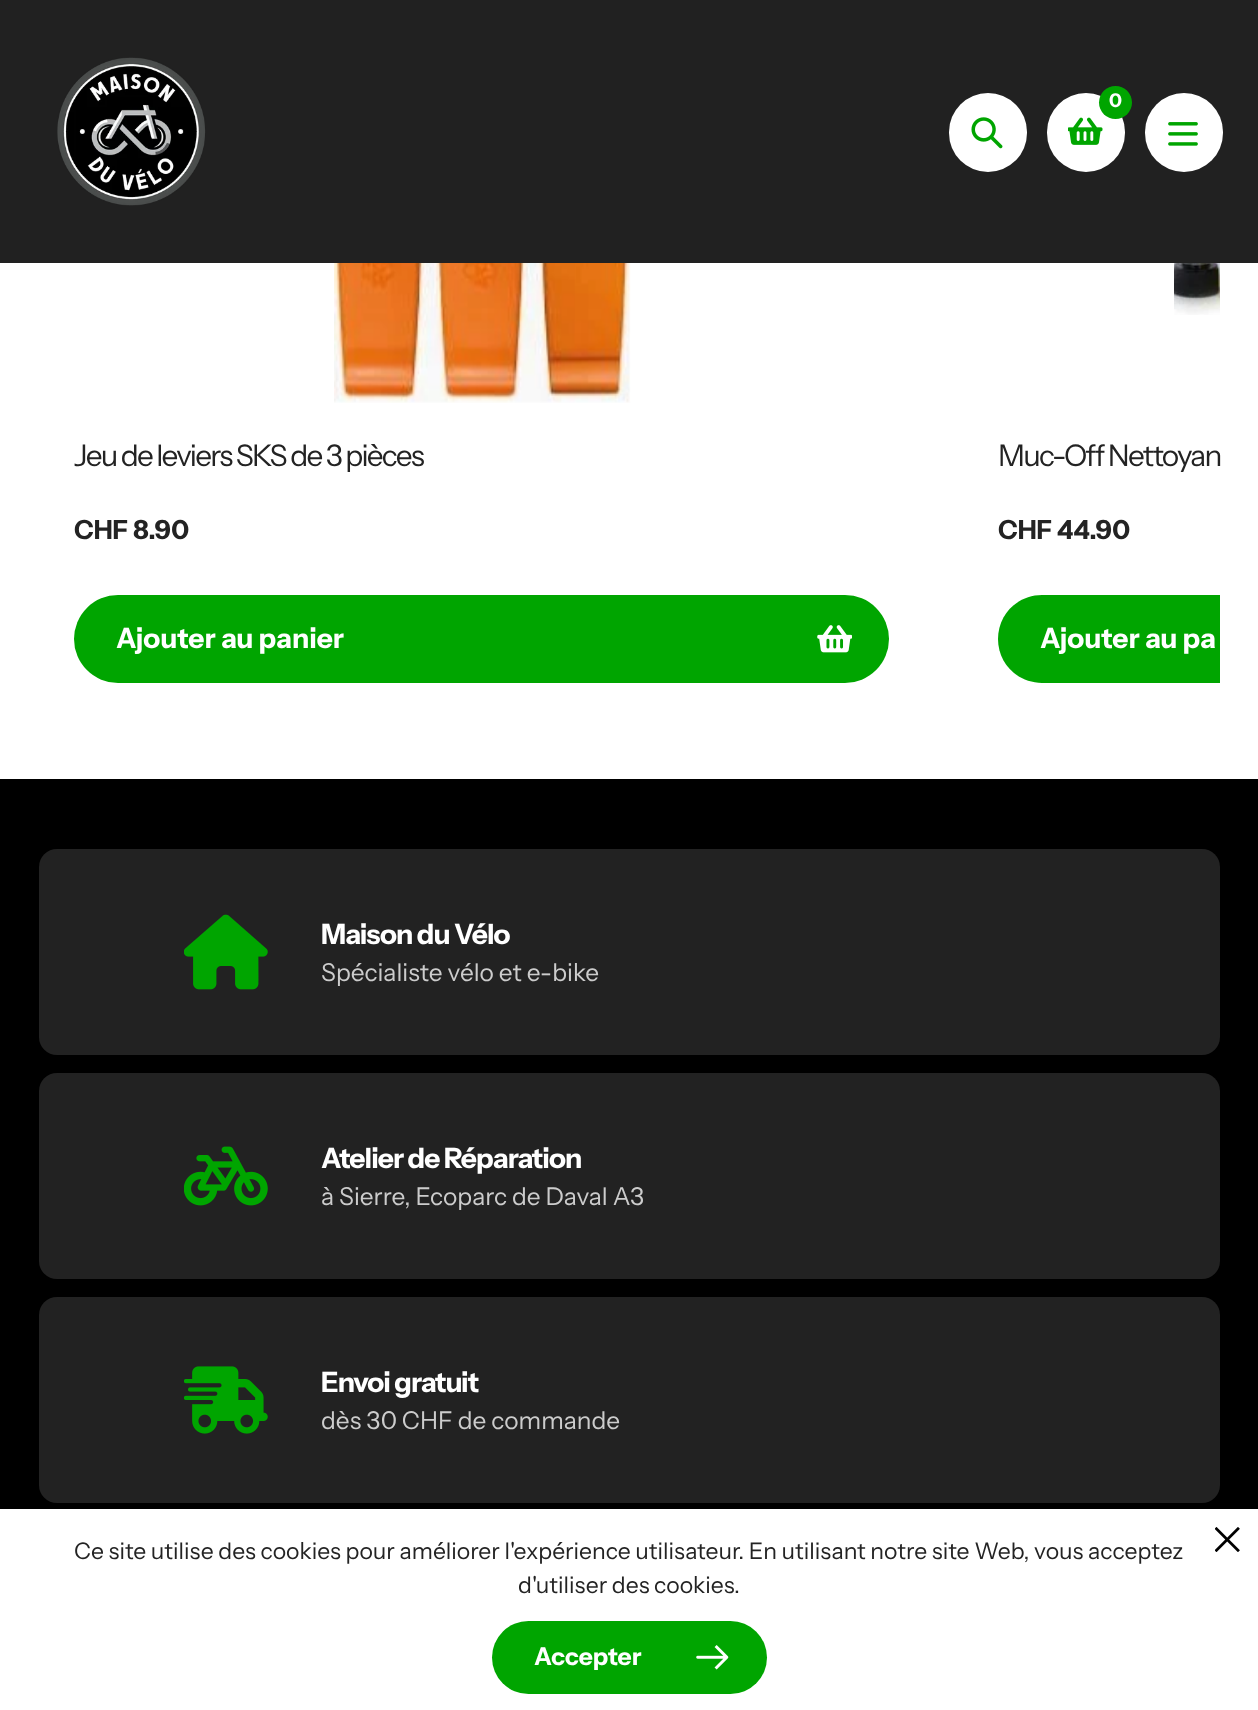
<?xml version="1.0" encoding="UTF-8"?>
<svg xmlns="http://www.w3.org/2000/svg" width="1258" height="1710">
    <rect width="100%" height="100%" fill="#FFFFFF"/>
    <rect x="0" y="0" width="1258" height="263" fill="#212121"/>
    <image x="57" y="57" width="149" height="149" href="img_01.png"/>
    <rect x="949" y="93" width="78" height="79" rx="39" fill="#FFFFFF"/>
    <image x="971" y="117" width="32" height="32" href="img_02.png"/>
    <rect x="1047" y="93" width="78" height="79" rx="39" fill="#FFFFFF"/>
    <image x="1068" y="117" width="35" height="28" href="img_03.png"/>
    <circle cx="1115.5" cy="102.5" r="16.5" fill="#00A500"/>
    <text x="1109" y="107" font-family="Instrument Sans" font-size="19" font-weight="700" fill="#FFFFFF">0</text>
    <rect x="1145" y="93" width="78" height="79" rx="39" fill="#FFFFFF"/>
    <image x="1168" y="122" width="30" height="24" href="img_04.png"/>
    <image x="334" y="263" width="297" height="140" href="img_05.png"/>
    <text x="74" y="466" font-family="Instrument Sans" font-size="29.75" letter-spacing="-1.75" fill="#232323">Jeu de leviers SKS de 3 pièces</text>
    <text x="74" y="539" font-family="Instrument Sans" font-size="26.25" font-weight="700" fill="#232323">CHF 8.90</text>
    <rect x="74" y="595" width="815" height="88" rx="44" fill="#00A500"/>
    <text x="116" y="648" font-family="Instrument Sans" font-size="28" font-weight="700" fill="#FFFFFF">Ajouter au panier</text>
    <image x="817" y="625" width="35" height="28" href="img_06.png"/>
    <image x="1174" y="263" width="46" height="52" href="img_07.png"/>
    <text x="998" y="466" font-family="Instrument Sans" font-size="29.75" letter-spacing="-1.75" fill="#232323">Muc-Off Nettoyan</text>
    <text x="998" y="539" font-family="Instrument Sans" font-size="26.25" font-weight="700" fill="#232323">CHF 44.90</text>
    <path d="M 1042 595 H 1220 V 683 H 1042 C 1017.5 683 998 663.5 998 639 C 998 614.5 1017.5 595 1042 595 Z" fill="#00A500"/>
    <text x="1040" y="648" font-family="Instrument Sans" font-size="28" font-weight="700" fill="#FFFFFF">Ajouter au pa</text>
    <rect x="0" y="779" width="1258" height="730" fill="#000000"/>
    <rect x="39" y="849" width="1181" height="206" rx="18" fill="#222222"/>
    <image x="184" y="914" width="84" height="76" href="img_08.png"/>
    <text x="321" y="944" font-family="Instrument Sans" font-size="28" font-weight="700" letter-spacing="-0.9" fill="#FFFFFF">Maison du Vélo</text>
    <text x="321" y="981" font-family="Instrument Sans" font-size="24.5" fill="#CCCCCC">Spécialiste vélo et e-bike</text>
    <rect x="39" y="1073" width="1181" height="206" rx="18" fill="#222222"/>
    <image x="184" y="1146" width="84" height="60" href="img_09.png"/>
    <text x="321" y="1168" font-family="Instrument Sans" font-size="28" font-weight="700" letter-spacing="-0.9" fill="#FFFFFF">Atelier de Réparation</text>
    <text x="321" y="1205" font-family="Instrument Sans" font-size="24.5" fill="#CCCCCC">à Sierre, Ecoparc de Daval A3</text>
    <rect x="39" y="1297" width="1181" height="206" rx="18" fill="#222222"/>
    <image x="184" y="1366" width="84" height="68" href="img_10.png"/>
    <text x="321" y="1392" font-family="Instrument Sans" font-size="28" font-weight="700" letter-spacing="-0.9" fill="#FFFFFF">Envoi gratuit</text>
    <text x="321" y="1429" font-family="Instrument Sans" font-size="24.5" fill="#CCCCCC">dès 30 CHF de commande</text>
    <text x="74" y="1559" font-family="Instrument Sans" font-size="22.95" fill="#232323">Ce site utilise des cookies pour améliorer l'expérience utilisateur. En utilisant notre site Web, vous acceptez</text>
    <text x="518" y="1593" font-family="Instrument Sans" font-size="22.95" fill="#232323">d'utiliser des cookies.</text>
    <image x="1215" y="1527" width="25" height="25" href="img_11.png"/>
    <rect x="492" y="1621" width="275" height="73" rx="36.5" fill="#00A500"/>
    <text x="534" y="1665" font-family="Instrument Sans" font-size="24.5" font-weight="700" fill="#FFFFFF">Accepter</text>
    <image x="696" y="1645" width="33" height="25" href="img_12.png"/>
</svg>
